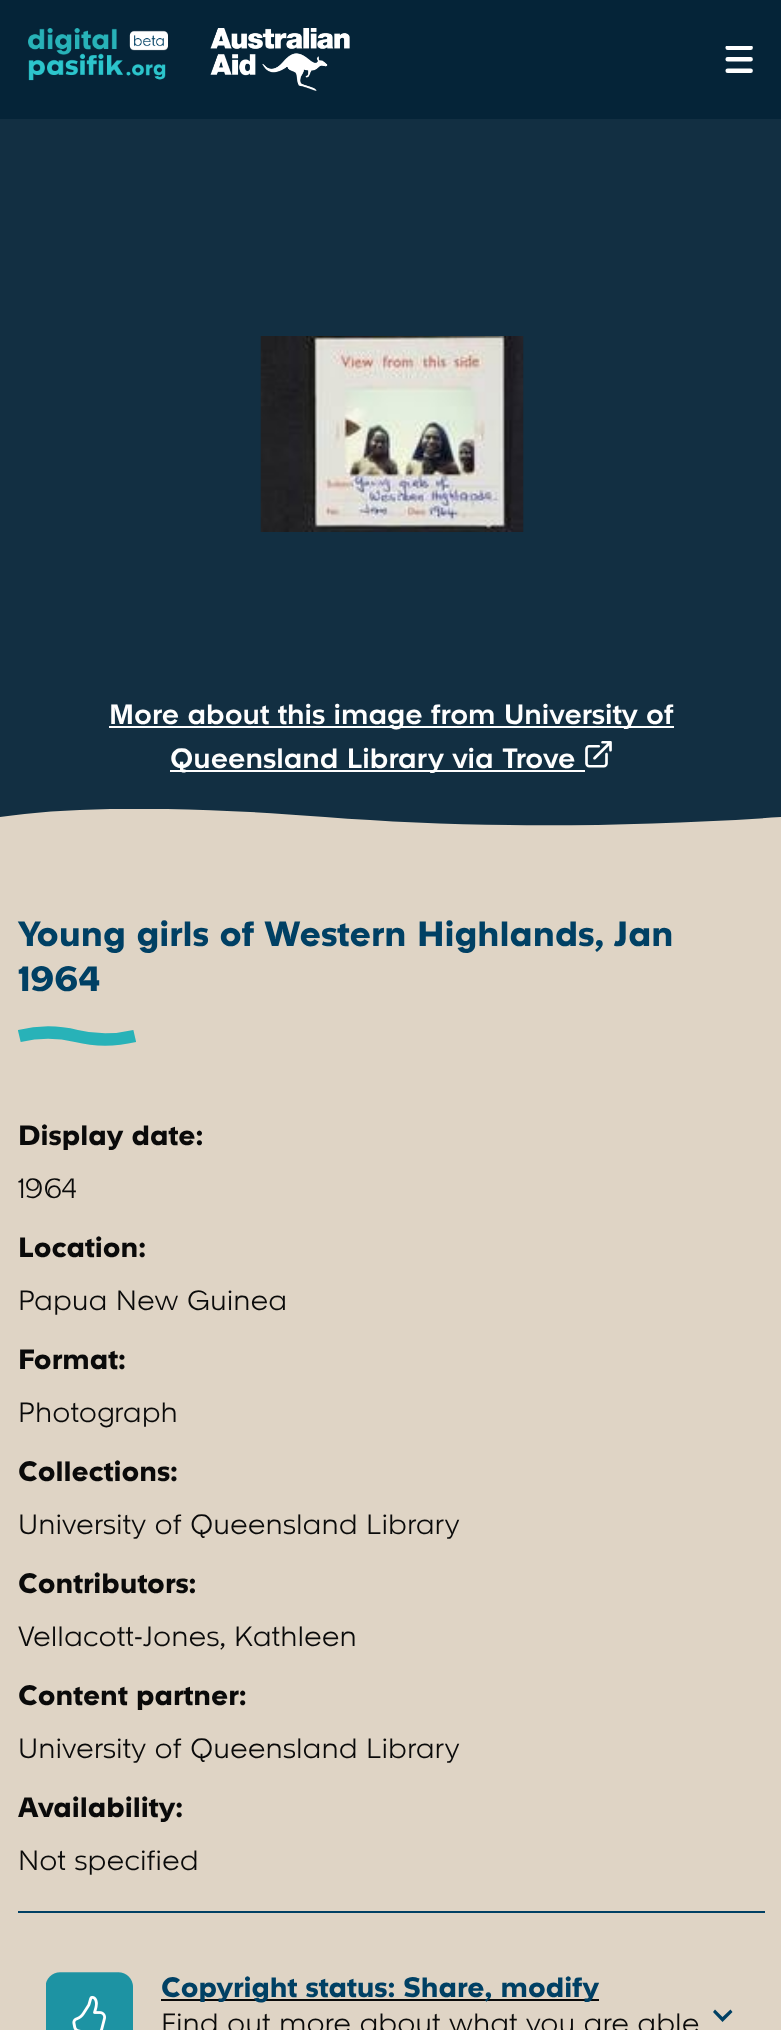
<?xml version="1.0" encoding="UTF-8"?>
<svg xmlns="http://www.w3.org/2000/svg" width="781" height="2030">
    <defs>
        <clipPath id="clip1"><rect x="0" y="809" width="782" height="21"/></clipPath>
    </defs>
    <rect width="100%" height="100%" fill="#052438"/>
    <image x="28" y="28" width="140" height="53" href="img_01.png"/>
    <image x="210" y="28" width="140" height="63" href="img_02.png"/>
    <image x="725" y="46" width="28" height="27" href="img_03.png"/>
    <rect x="0" y="119" width="781" height="707" fill="#122F42"/>
    <image x="260" y="336" width="264" height="196" href="img_04.png"/>
    <rect x="109" y="726" width="565" height="2" fill="#FEFEFE"/>
    <text x="109" y="724" font-family="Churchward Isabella" font-size="28" font-weight="500" fill="#FEFEFE">More about this image from University of</text>
    <rect x="170" y="770" width="415" height="2" fill="#FEFEFE"/>
    <text x="170" y="768" font-family="Churchward Isabella" font-size="28" font-weight="500" fill="#FEFEFE">Queensland Library via Trove</text>
    <image x="585" y="741" width="27" height="27" href="img_05.png"/>
    <g clip-path="url(#clip1)">
        <path d="M 0 817 C 76 806 184 806 325 817 C 466 828 618 828 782 817 V 830 H 0 Z" fill="#DFD4C5"/>
    </g>
    <rect x="0" y="830" width="781" height="1200" fill="#DFD4C5"/>
    <text font-family="Churchward Isabella" font-size="35" font-weight="700" fill="#004064">
        <tspan x="18" y="946">Young girls of Western Highlands, Jan</tspan>
        <tspan x="18" y="991">1964</tspan>
    </text>
    <image x="18" y="1026" width="118" height="20" href="img_06.png"/>
    <text x="18" y="1145" font-family="Churchward Isabella" font-size="28" font-weight="700" fill="#0A0A0A">Display date:</text>
    <text x="18" y="1198" font-family="Churchward Isabella" font-size="28" font-weight="300" fill="#0A0A0A">1964</text>
    <text x="18" y="1257" font-family="Churchward Isabella" font-size="28" font-weight="700" fill="#0A0A0A">Location:</text>
    <text x="18" y="1310" font-family="Churchward Isabella" font-size="28" font-weight="300" fill="#0A0A0A">Papua New Guinea</text>
    <text x="18" y="1369" font-family="Churchward Isabella" font-size="28" font-weight="700" fill="#0A0A0A">Format:</text>
    <text x="18" y="1422" font-family="Churchward Isabella" font-size="28" font-weight="300" fill="#0A0A0A">Photograph</text>
    <text x="18" y="1481" font-family="Churchward Isabella" font-size="28" font-weight="700" fill="#0A0A0A">Collections:</text>
    <text x="18" y="1534" font-family="Churchward Isabella" font-size="28" font-weight="300" fill="#0A0A0A">University of Queensland Library</text>
    <text x="18" y="1593" font-family="Churchward Isabella" font-size="28" font-weight="700" fill="#0A0A0A">Contributors:</text>
    <text x="18" y="1646" font-family="Churchward Isabella" font-size="28" font-weight="300" fill="#0A0A0A">Vellacott-Jones, Kathleen</text>
    <text x="18" y="1705" font-family="Churchward Isabella" font-size="28" font-weight="700" fill="#0A0A0A">Content partner:</text>
    <text x="18" y="1758" font-family="Churchward Isabella" font-size="28" font-weight="300" fill="#0A0A0A">University of Queensland Library</text>
    <text x="18" y="1817" font-family="Churchward Isabella" font-size="28" font-weight="700" fill="#0A0A0A">Availability:</text>
    <text x="18" y="1870" font-family="Churchward Isabella" font-size="28" font-weight="300" fill="#0A0A0A">Not specified</text>
    <rect x="18" y="1911" width="747" height="2" fill="#004064"/>
    <image x="46" y="1972" width="87" height="58" href="img_07.png"/>
    <rect x="161" y="1999" width="438" height="2" fill="#0A0A0A"/>
    <text x="161" y="1997" font-family="Churchward Isabella" font-size="28" font-weight="700" fill="#004064">Copyright status: Share, modify</text>
    <text x="161" y="2033" font-family="Churchward Isabella" font-size="28" font-weight="300" fill="#0A0A0A">Find out more about what you are able</text>
    <path d="M 730.5 2009.5 L 722.5 2017 L 715 2009.5 L 713 2012 L 722.5 2022 L 732.5 2012 Z" fill="#004064"/>
</svg>
